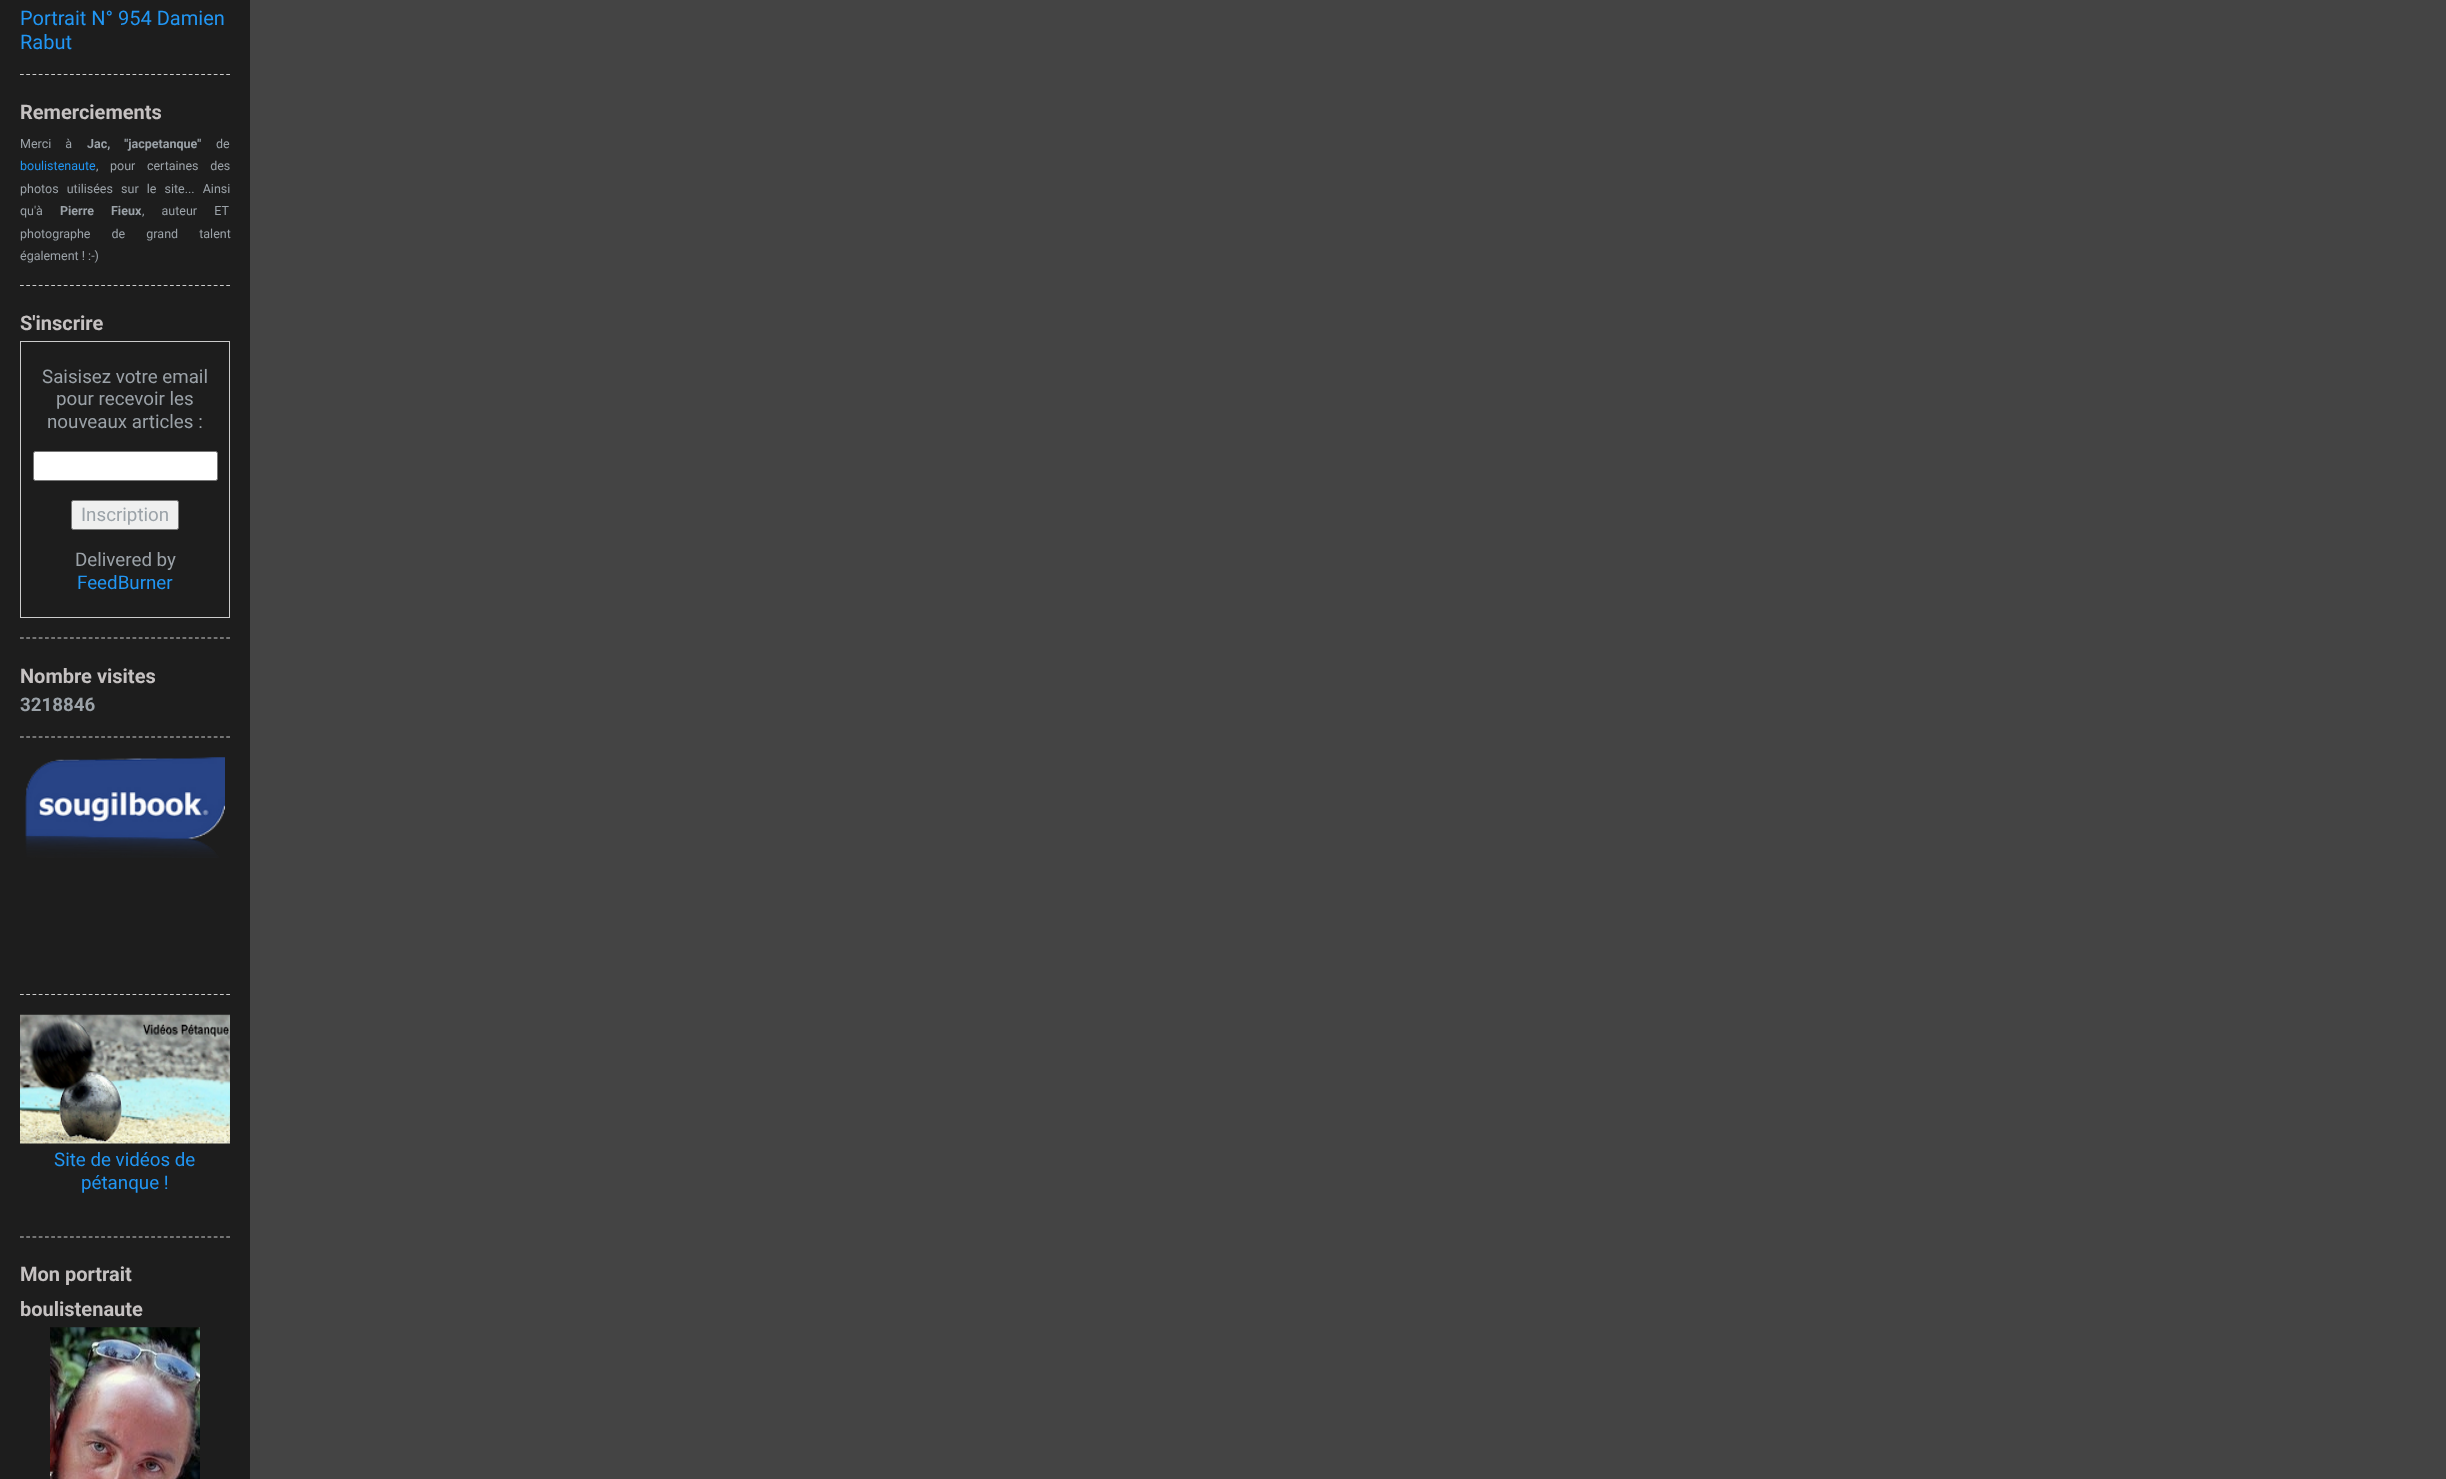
<?xml version="1.0" encoding="UTF-8"?>
<svg xmlns="http://www.w3.org/2000/svg" width="2446" height="1479">
    <rect width="100%" height="100%" fill="#444444"/>
    <rect x="0" y="0" width="250" height="1479" fill="#1D1D1D"/>
    <text font-family="Roboto" font-size="20" fill="#2196F3">
        <tspan x="20" y="25">Portrait N° 954 Damien</tspan>
        <tspan x="20" y="49">Rabut</tspan>
    </text>
    <path d="M 20 74.5 H 230" fill="none" stroke="#CCCCCC" stroke-width="1.2" stroke-dasharray="3.75 2.5"/>
    <text x="20" y="119" font-family="Roboto" font-size="20" font-weight="700" fill="#C5C1C1">Remerciements</text>
    <text x="20" y="148" word-spacing="11" font-family="Roboto" font-size="12.5" fill="#9BA2A8">Merci à</text>
    <text x="87" y="148" word-spacing="11" font-family="Roboto" font-size="12.5" font-weight="700" fill="#9BA2A8">Jac, "jacpetanque"</text>
    <text x="216" y="148" font-family="Roboto" font-size="12.5" fill="#9BA2A8">de</text>
    <text x="20" y="170" font-family="Roboto" font-size="12.5" fill="#2196F3">boulistenaute</text>
    <text x="96" y="170" word-spacing="8.5" font-family="Roboto" font-size="12.5" fill="#9BA2A8">, pour certaines des</text>
    <text font-family="Roboto" font-size="12.5" fill="#9BA2A8">
        <tspan x="20" y="193" word-spacing="5">photos utilisées sur le site... Ainsi</tspan>
        <tspan x="20" y="215">qu'à</tspan>
    </text>
    <text x="60" y="215" word-spacing="14" font-family="Roboto" font-size="12.5" font-weight="700" fill="#9BA2A8">Pierre Fieux</text>
    <text x="142" y="215" word-spacing="14" font-family="Roboto" font-size="12.5" fill="#9BA2A8">, auteur ET</text>
    <text font-family="Roboto" font-size="12.5" fill="#9BA2A8">
        <tspan x="20" y="238" word-spacing="18">photographe de grand talent</tspan>
        <tspan x="20" y="260">également ! :-)</tspan>
    </text>
    <path d="M 20 285.5 H 230" fill="none" stroke="#CCCCCC" stroke-width="1.2" stroke-dasharray="3.75 2.5"/>
    <text x="20" y="330" font-family="Roboto" font-size="20" font-weight="700" fill="#C5C1C1">S'inscrire</text>
    <rect x="20.5" y="341.5" width="209" height="276" fill="none" stroke="#CCCCCC"/>
    <text x="42" y="383" font-family="Roboto" font-size="18.75" fill="#9BA2A8">Saisisez votre email</text>
    <text x="56" y="405" font-family="Roboto" font-size="18.75" fill="#9BA2A8">pour recevoir les</text>
    <text x="47" y="428" font-family="Roboto" font-size="18.75" fill="#9BA2A8">nouveaux articles :</text>
    <rect x="33.5" y="451.5" width="184" height="29" rx="2" fill="#FFFFFF" stroke="#767676"/>
    <rect x="71.5" y="500.5" width="107" height="29" rx="2" fill="#EFEFEF" stroke="#767676"/>
    <text x="81" y="521" font-family="Roboto" font-size="18.75" fill="#9BA2A8">Inscription</text>
    <text x="75" y="566" font-family="Roboto" font-size="18.75" fill="#9BA2A8">Delivered by</text>
    <text x="77" y="589" font-family="Roboto" font-size="18.75" fill="#2196F3">FeedBurner</text>
    <path d="M 20 638 H 230" fill="none" stroke="#CCCCCC" stroke-width="1.2" stroke-dasharray="3.75 2.5"/>
    <text x="20" y="683" font-family="Roboto" font-size="20" font-weight="700" fill="#C5C1C1">Nombre visites</text>
    <text x="20" y="711" font-family="Roboto" font-size="18.75" font-weight="700" fill="#9BA2A8">3218846</text>
    <path d="M 20 737 H 230" fill="none" stroke="#CCCCCC" stroke-width="1.2" stroke-dasharray="3.75 2.5"/>
    <image x="25" y="757" width="200" height="101" href="img_01.png"/>
    <path d="M 20 994.5 H 230" fill="none" stroke="#CCCCCC" stroke-width="1.2" stroke-dasharray="3.75 2.5"/>
    <image x="20" y="1014" width="210" height="130" href="img_02.png"/>
    <text x="54" y="1166" font-family="Roboto" font-size="18.75" fill="#2196F3">Site de vidéos de</text>
    <text x="81" y="1189" font-family="Roboto" font-size="18.75" fill="#2196F3">pétanque !</text>
    <path d="M 20 1237 H 230" fill="none" stroke="#CCCCCC" stroke-width="1.2" stroke-dasharray="3.75 2.5"/>
    <text font-family="Roboto" font-size="20" font-weight="700" fill="#C5C1C1">
        <tspan x="20" y="1281">Mon portrait</tspan>
        <tspan x="20" y="1316">boulistenaute</tspan>
    </text>
    <image x="50" y="1327" width="150" height="152" href="img_03.png"/>
</svg>
